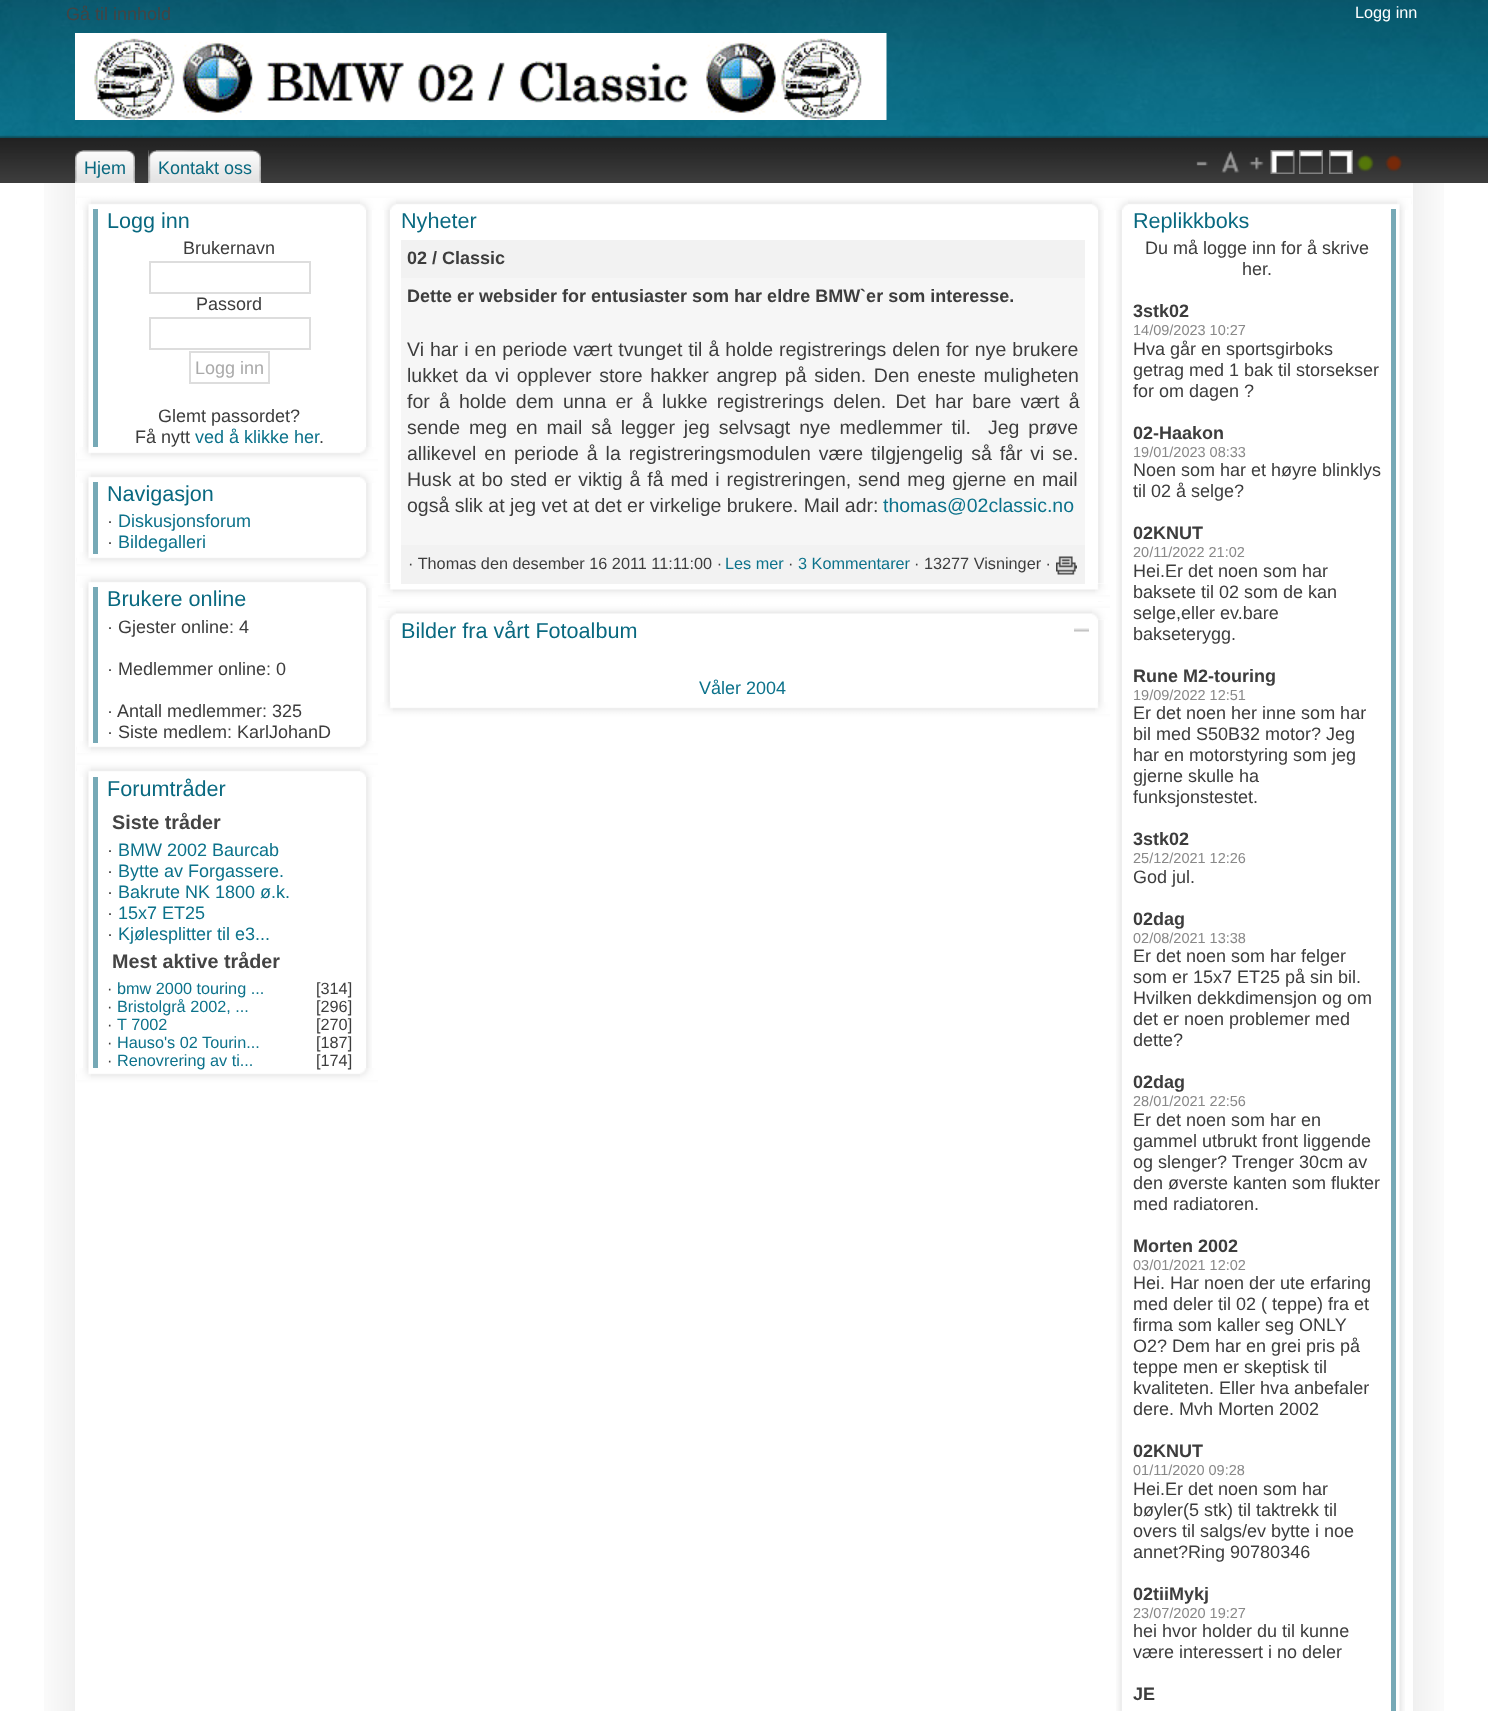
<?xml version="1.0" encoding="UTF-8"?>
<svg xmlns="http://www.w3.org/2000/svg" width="1488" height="1711">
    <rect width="100%" height="100%" fill="#FFFFFF"/>
    <image x="0" y="0" width="1488" height="138" href="img_01.png"/>
    <text x="66" y="20" font-family="Liberation Sans" font-size="18" fill="#444444">Gå til innhold</text>
    <text x="1355" y="18" font-family="Liberation Sans" font-size="16.25" fill="#FFFFFF">Logg inn</text>
    <image x="75" y="33" width="812" height="87" href="img_02.png"/>
    <image x="0" y="138" width="1488" height="45" href="img_03.png"/>
    <image x="82" y="150" width="53" height="33" href="img_04.png"/>
    <image x="75" y="150" width="8" height="33" href="img_05.png"/>
    <text x="84" y="174" font-family="Liberation Sans" font-size="18" fill="#096980">Hjem</text>
    <image x="148" y="150" width="113" height="33" href="img_06.png"/>
    <image x="148" y="150" width="8" height="33" href="img_07.png"/>
    <text x="158" y="174" font-family="Liberation Sans" font-size="18" fill="#096980">Kontakt oss</text>
    <image x="1196" y="161" width="12" height="5" href="img_08.png"/>
    <image x="1221" y="151" width="19" height="22" href="img_09.png"/>
    <image x="1249" y="157" width="15" height="13" href="img_10.png"/>
    <image x="1270" y="150" width="25" height="24" href="img_11.png"/>
    <image x="1299" y="150" width="24" height="24" href="img_12.png"/>
    <image x="1329" y="150" width="24" height="24" href="img_13.png"/>
    <image x="1356" y="154" width="18" height="18" href="img_14.png"/>
    <image x="1385" y="154" width="18" height="18" href="img_15.png"/>
    <image x="1413" y="183" width="31" height="1528" href="img_16.png"/>
    <image x="44" y="183" width="31" height="1528" href="img_17.png"/>
    <image x="83" y="210" width="6" height="237" href="img_18.png"/>
    <image x="366" y="210" width="6" height="237" href="img_19.png"/>
    <image x="76" y="192" width="302" height="18" href="img_20.png"/>
    <image x="76" y="447" width="302" height="18" href="img_21.png"/>
    <image x="76" y="198" width="15" height="12" href="img_22.png"/>
    <image x="76" y="447" width="15" height="12" href="img_23.png"/>
    <image x="360" y="198" width="18" height="12" href="img_24.png"/>
    <image x="360" y="447" width="18" height="12" href="img_25.png"/>
    <rect x="93" y="209" width="5" height="238" fill="#76A9B6"/>
    <text x="107" y="228" font-family="Liberation Sans" font-size="21.6" fill="#096980">Logg inn</text>
    <text x="183" y="254" font-family="Liberation Sans" font-size="18" fill="#3D3D3D">Brukernavn</text>
    <rect x="150" y="262" width="160" height="31" fill="none" stroke="#DDDDDD" stroke-width="2"/>
    <text x="196" y="310" font-family="Liberation Sans" font-size="18" fill="#3D3D3D">Passord</text>
    <rect x="150" y="318" width="160" height="31" fill="none" stroke="#DDDDDD" stroke-width="2"/>
    <rect x="190" y="352" width="79" height="31" fill="none" stroke="#DDDDDD" stroke-width="2"/>
    <text x="195" y="374" font-family="Liberation Sans" font-size="18" fill="#AAAAAA">Logg inn</text>
    <text x="158" y="422" font-family="Liberation Sans" font-size="18" fill="#3D3D3D">Glemt passordet?</text>
    <text x="135" y="443" font-family="Liberation Sans" font-size="18" fill="#3D3D3D">Få nytt</text>
    <text x="195" y="443" font-family="Liberation Sans" font-size="18" fill="#0C728B">ved å klikke her</text>
    <text x="319" y="443" font-family="Liberation Sans" font-size="18" fill="#3D3D3D">.</text>
    <image x="83" y="483" width="6" height="69" href="img_26.png"/>
    <image x="366" y="483" width="6" height="69" href="img_27.png"/>
    <image x="76" y="465" width="302" height="18" href="img_28.png"/>
    <image x="76" y="552" width="302" height="18" href="img_21.png"/>
    <image x="76" y="471" width="15" height="12" href="img_22.png"/>
    <image x="76" y="552" width="15" height="12" href="img_23.png"/>
    <image x="360" y="471" width="18" height="12" href="img_24.png"/>
    <image x="360" y="552" width="18" height="12" href="img_25.png"/>
    <rect x="93" y="482" width="5" height="72" fill="#76A9B6"/>
    <text x="107" y="501" font-family="Liberation Sans" font-size="21.6" fill="#096980">Navigasjon</text>
    <text x="107" y="527" font-family="Liberation Sans" font-size="18" fill="#3D3D3D">·</text>
    <text x="118" y="527" font-family="Liberation Sans" font-size="18" fill="#0C728B">Diskusjonsforum</text>
    <text x="107" y="548" font-family="Liberation Sans" font-size="18" fill="#3D3D3D">·</text>
    <text x="118" y="548" font-family="Liberation Sans" font-size="18" fill="#0C728B">Bildegalleri</text>
    <image x="83" y="588" width="6" height="153" href="img_29.png"/>
    <image x="366" y="588" width="6" height="153" href="img_30.png"/>
    <image x="76" y="570" width="302" height="18" href="img_28.png"/>
    <image x="76" y="741" width="302" height="18" href="img_31.png"/>
    <image x="76" y="576" width="15" height="12" href="img_22.png"/>
    <image x="76" y="741" width="15" height="12" href="img_23.png"/>
    <image x="360" y="576" width="18" height="12" href="img_24.png"/>
    <image x="360" y="741" width="18" height="12" href="img_25.png"/>
    <rect x="93" y="587" width="5" height="156" fill="#76A9B6"/>
    <text x="107" y="606" font-family="Liberation Sans" font-size="21.6" fill="#096980">Brukere online</text>
    <text x="107" y="633" font-family="Liberation Sans" font-size="18" fill="#3D3D3D">· Gjester online: 4</text>
    <text x="107" y="675" font-family="Liberation Sans" font-size="18" fill="#3D3D3D">· Medlemmer online: 0</text>
    <text x="107" y="717" font-family="Liberation Sans" font-size="18" fill="#3D3D3D">·</text>
    <text x="117" y="717" font-family="Liberation Sans" font-size="18" fill="#3D3D3D">Antall medlemmer: 325</text>
    <text x="107" y="738" font-family="Liberation Sans" font-size="18" fill="#3D3D3D">· Siste medlem: KarlJohanD</text>
    <image x="83" y="777" width="6" height="291" href="img_32.png"/>
    <image x="366" y="777" width="6" height="291" href="img_33.png"/>
    <image x="76" y="759" width="302" height="18" href="img_28.png"/>
    <image x="76" y="1068" width="302" height="18" href="img_21.png"/>
    <image x="76" y="765" width="15" height="12" href="img_22.png"/>
    <image x="76" y="1068" width="15" height="12" href="img_23.png"/>
    <image x="360" y="765" width="18" height="12" href="img_24.png"/>
    <image x="360" y="1068" width="18" height="12" href="img_25.png"/>
    <rect x="93" y="777" width="5" height="291" fill="#76A9B6"/>
    <text x="107" y="796" font-family="Liberation Sans" font-size="21.6" fill="#096980">Forumtråder</text>
    <text x="112" y="829" font-family="Liberation Sans" font-size="19.75" font-weight="700" fill="#444444">Siste tråder</text>
    <text x="107" y="856" font-family="Liberation Sans" font-size="18" fill="#3D3D3D">·</text>
    <text x="118" y="856" font-family="Liberation Sans" font-size="18" fill="#0C728B">BMW 2002 Baurcab</text>
    <text x="107" y="877" font-family="Liberation Sans" font-size="18" fill="#3D3D3D">·</text>
    <text x="118" y="877" font-family="Liberation Sans" font-size="18" fill="#0C728B">Bytte av Forgassere.</text>
    <text x="107" y="898" font-family="Liberation Sans" font-size="18" fill="#3D3D3D">·</text>
    <text x="118" y="898" font-family="Liberation Sans" font-size="18" fill="#0C728B">Bakrute NK 1800 ø.k.</text>
    <text x="107" y="919" font-family="Liberation Sans" font-size="18" fill="#3D3D3D">·</text>
    <text x="118" y="919" font-family="Liberation Sans" font-size="18" fill="#0C728B">15x7 ET25</text>
    <text x="107" y="940" font-family="Liberation Sans" font-size="18" fill="#3D3D3D">·</text>
    <text x="118" y="940" font-family="Liberation Sans" font-size="18" fill="#0C728B">Kjølesplitter til e3...</text>
    <text x="112" y="968" font-family="Liberation Sans" font-size="19.75" font-weight="700" fill="#444444">Mest aktive tråder</text>
    <text x="107" y="994" font-family="Liberation Sans" font-size="16.25" fill="#3D3D3D">·</text>
    <text x="117" y="994" font-family="Liberation Sans" font-size="16.25" fill="#0C728B">bmw 2000 touring ...</text>
    <text x="316" y="994" font-family="Liberation Sans" font-size="16.25" fill="#3D3D3D">[314]</text>
    <text x="107" y="1012" font-family="Liberation Sans" font-size="16.25" fill="#3D3D3D">·</text>
    <text x="117" y="1012" font-family="Liberation Sans" font-size="16.25" fill="#0C728B">Bristolgrå 2002, ...</text>
    <text x="316" y="1012" font-family="Liberation Sans" font-size="16.25" fill="#3D3D3D">[296]</text>
    <text x="107" y="1030" font-family="Liberation Sans" font-size="16.25" fill="#3D3D3D">·</text>
    <text x="117" y="1030" font-family="Liberation Sans" font-size="16.25" fill="#0C728B">T 7002</text>
    <text x="316" y="1030" font-family="Liberation Sans" font-size="16.25" fill="#3D3D3D">[270]</text>
    <text x="107" y="1048" font-family="Liberation Sans" font-size="16.25" fill="#3D3D3D">·</text>
    <text x="117" y="1048" font-family="Liberation Sans" font-size="16.25" fill="#0C728B">Hauso's 02 Tourin...</text>
    <text x="316" y="1048" font-family="Liberation Sans" font-size="16.25" fill="#3D3D3D">[187]</text>
    <text x="107" y="1066" font-family="Liberation Sans" font-size="16.25" fill="#3D3D3D">·</text>
    <text x="117" y="1066" font-family="Liberation Sans" font-size="16.25" fill="#0C728B">Renovrering av ti...</text>
    <text x="316" y="1066" font-family="Liberation Sans" font-size="16.25" fill="#3D3D3D">[174]</text>
    <image x="384" y="210" width="6" height="392" href="img_34.png"/>
    <image x="1098" y="210" width="6" height="392" href="img_35.png"/>
    <image x="378" y="192" width="732" height="18" href="img_36.png"/>
    <image x="378" y="583" width="732" height="19" href="img_37.png"/>
    <image x="378" y="198" width="18" height="12" href="img_38.png"/>
    <image x="378" y="584" width="15" height="11" href="img_39.png"/>
    <image x="1092" y="198" width="18" height="12" href="img_24.png"/>
    <image x="1095" y="584" width="15" height="11" href="img_40.png"/>
    <text x="401" y="228" font-family="Liberation Sans" font-size="21.6" fill="#096980">Nyheter</text>
    <rect x="401" y="240" width="684" height="38" fill="#F2F2F2"/>
    <text x="407" y="264" font-family="Liberation Sans" font-size="18" font-weight="700" fill="#3D3D3D">02 / Classic</text>
    <rect x="401" y="278" width="684" height="267" fill="#F6F6F6"/>
    <text x="407" y="302" font-family="Liberation Sans" font-size="18" font-weight="700" fill="#3D3D3D">Dette er websider for entusiaster som har eldre BMW`er som interesse.</text>
    <text font-family="Liberation Sans" font-size="19.5" fill="#3D3D3D">
        <tspan x="407" y="356" word-spacing="0.6">Vi har i en periode vært tvunget til å holde registrerings delen for nye brukere</tspan>
        <tspan x="407" y="382" word-spacing="2.25">lukket da vi opplever store hakker angrep på siden. Den eneste muligheten</tspan>
        <tspan x="407" y="408" word-spacing="3.75">for å holde dem unna er å lukke registrerings delen. Det har bare vært å</tspan>
        <tspan x="407" y="434" word-spacing="3.5">sende meg en mail så legger jeg selvsagt nye medlemmer til.</tspan>
    </text>
    <text x="988" y="434" word-spacing="3.5" font-family="Liberation Sans" font-size="19.5" fill="#3D3D3D">Jeg prøve</text>
    <text font-family="Liberation Sans" font-size="19.5" fill="#3D3D3D">
        <tspan x="407" y="460" word-spacing="2.5">allikevel en periode å la registreringsmodulen være tilgjengelig så får vi se.</tspan>
        <tspan x="407" y="486" word-spacing="1.5">Husk at bo sted er viktig å få med i registreringen, send meg gjerne en mail</tspan>
        <tspan x="407" y="512">også slik at jeg vet at det er virkelige brukere. Mail adr:</tspan>
    </text>
    <text x="883" y="512" font-family="Liberation Sans" font-size="19.5" fill="#0C728B">thomas@02classic.no</text>
    <rect x="401" y="545" width="684" height="39" fill="#F2F2F2"/>
    <text x="408" y="569" font-family="Liberation Sans" font-size="16.25" fill="#3D3D3D">· Thomas den desember 16 2011 11:11:00 ·</text>
    <text x="725" y="569" font-family="Liberation Sans" font-size="16.25" fill="#0C728B">Les mer</text>
    <text x="788" y="569" font-family="Liberation Sans" font-size="16.25" fill="#3D3D3D">·</text>
    <text x="798" y="569" font-family="Liberation Sans" font-size="16.25" fill="#0C728B">3 Kommentarer</text>
    <text x="914" y="569" font-family="Liberation Sans" font-size="16.25" fill="#3D3D3D">· 13277 Visninger ·</text>
    <image x="1056" y="556" width="21" height="19" href="img_41.png"/>
    <image x="384" y="601" width="6" height="101" href="img_42.png"/>
    <image x="1098" y="601" width="6" height="101" href="img_43.png"/>
    <image x="378" y="601" width="732" height="19" href="img_44.png"/>
    <image x="378" y="702" width="732" height="18" href="img_45.png"/>
    <image x="378" y="608" width="18" height="12" href="img_46.png"/>
    <image x="378" y="702" width="15" height="12" href="img_47.png"/>
    <image x="1092" y="608" width="18" height="12" href="img_48.png"/>
    <image x="1095" y="702" width="15" height="12" href="img_49.png"/>
    <text x="401" y="638" font-family="Liberation Sans" font-size="21.6" fill="#096980">Bilder fra vårt Fotoalbum</text>
    <image x="1074" y="628" width="15" height="4" href="img_50.png"/>
    <text x="699" y="694" font-family="Liberation Sans" font-size="18" fill="#0C728B">Våler 2004</text>
    <image x="1116" y="210" width="6" height="1501" href="img_51.png"/>
    <image x="1399" y="210" width="6" height="1501" href="img_52.png"/>
    <image x="1110" y="192" width="302" height="18" href="img_53.png"/>
    <image x="1110" y="198" width="18" height="12" href="img_38.png"/>
    <image x="1397" y="198" width="15" height="12" href="img_54.png"/>
    <rect x="1391" y="209" width="5" height="1502" fill="#76A9B6"/>
    <text x="1133" y="228" font-family="Liberation Sans" font-size="21.6" fill="#096980">Replikkboks</text>
    <text x="1145" y="254" font-family="Liberation Sans" font-size="18" fill="#3D3D3D">Du må logge inn for å skrive</text>
    <text x="1242" y="275" font-family="Liberation Sans" font-size="18" fill="#3D3D3D">her.</text>
    <text x="1133" y="317" font-family="Liberation Sans" font-size="18" font-weight="700" fill="#3D3D3D">3stk02</text>
    <text x="1133" y="335" font-family="Liberation Sans" font-size="14.5" fill="#888888">14/09/2023 10:27</text>
    <text font-family="Liberation Sans" font-size="18" fill="#3D3D3D">
        <tspan x="1133" y="355">Hva går en sportsgirboks</tspan>
        <tspan x="1133" y="376">getrag med 1 bak til storsekser</tspan>
        <tspan x="1133" y="397">for om dagen ?</tspan>
    </text>
    <text x="1133" y="439" font-family="Liberation Sans" font-size="18" font-weight="700" fill="#3D3D3D">02-Haakon</text>
    <text x="1133" y="457" font-family="Liberation Sans" font-size="14.5" fill="#888888">19/01/2023 08:33</text>
    <text font-family="Liberation Sans" font-size="18" fill="#3D3D3D">
        <tspan x="1133" y="476">Noen som har et høyre blinklys</tspan>
        <tspan x="1133" y="497">til 02 å selge?</tspan>
    </text>
    <text x="1133" y="539" font-family="Liberation Sans" font-size="18" font-weight="700" fill="#3D3D3D">02KNUT</text>
    <text x="1133" y="557" font-family="Liberation Sans" font-size="14.5" fill="#888888">20/11/2022 21:02</text>
    <text font-family="Liberation Sans" font-size="18" fill="#3D3D3D">
        <tspan x="1133" y="577">Hei.Er det noen som har</tspan>
        <tspan x="1133" y="598">baksete til 02 som de kan</tspan>
        <tspan x="1133" y="619">selge,eller ev.bare</tspan>
        <tspan x="1133" y="640">bakseterygg.</tspan>
    </text>
    <text x="1133" y="682" font-family="Liberation Sans" font-size="18" font-weight="700" fill="#3D3D3D">Rune M2-touring</text>
    <text x="1133" y="700" font-family="Liberation Sans" font-size="14.5" fill="#888888">19/09/2022 12:51</text>
    <text font-family="Liberation Sans" font-size="18" fill="#3D3D3D">
        <tspan x="1133" y="719">Er det noen her inne som har</tspan>
        <tspan x="1133" y="740">bil med S50B32 motor? Jeg</tspan>
        <tspan x="1133" y="761">har en motorstyring som jeg</tspan>
        <tspan x="1133" y="782">gjerne skulle ha</tspan>
        <tspan x="1133" y="803">funksjonstestet.</tspan>
    </text>
    <text x="1133" y="845" font-family="Liberation Sans" font-size="18" font-weight="700" fill="#3D3D3D">3stk02</text>
    <text x="1133" y="863" font-family="Liberation Sans" font-size="14.5" fill="#888888">25/12/2021 12:26</text>
    <text x="1133" y="883" font-family="Liberation Sans" font-size="18" fill="#3D3D3D">God jul.</text>
    <text x="1133" y="925" font-family="Liberation Sans" font-size="18" font-weight="700" fill="#3D3D3D">02dag</text>
    <text x="1133" y="943" font-family="Liberation Sans" font-size="14.5" fill="#888888">02/08/2021 13:38</text>
    <text font-family="Liberation Sans" font-size="18" fill="#3D3D3D">
        <tspan x="1133" y="962">Er det noen som har felger</tspan>
        <tspan x="1133" y="983">som er 15x7 ET25 på sin bil.</tspan>
        <tspan x="1133" y="1004">Hvilken dekkdimensjon og om</tspan>
        <tspan x="1133" y="1025">det er noen problemer med</tspan>
        <tspan x="1133" y="1046">dette?</tspan>
    </text>
    <text x="1133" y="1088" font-family="Liberation Sans" font-size="18" font-weight="700" fill="#3D3D3D">02dag</text>
    <text x="1133" y="1106" font-family="Liberation Sans" font-size="14.5" fill="#888888">28/01/2021 22:56</text>
    <text font-family="Liberation Sans" font-size="18" fill="#3D3D3D">
        <tspan x="1133" y="1126">Er det noen som har en</tspan>
        <tspan x="1133" y="1147">gammel utbrukt front liggende</tspan>
        <tspan x="1133" y="1168">og slenger? Trenger 30cm av</tspan>
        <tspan x="1133" y="1189">den øverste kanten som flukter</tspan>
        <tspan x="1133" y="1210">med radiatoren.</tspan>
    </text>
    <text x="1133" y="1252" font-family="Liberation Sans" font-size="18" font-weight="700" fill="#3D3D3D">Morten 2002</text>
    <text x="1133" y="1270" font-family="Liberation Sans" font-size="14.5" fill="#888888">03/01/2021 12:02</text>
    <text font-family="Liberation Sans" font-size="18" fill="#3D3D3D">
        <tspan x="1133" y="1289">Hei. Har noen der ute erfaring</tspan>
        <tspan x="1133" y="1310">med deler til 02 ( teppe) fra et</tspan>
        <tspan x="1133" y="1331">firma som kaller seg ONLY</tspan>
        <tspan x="1133" y="1352">O2? Dem har en grei pris på</tspan>
        <tspan x="1133" y="1373">teppe men er skeptisk til</tspan>
        <tspan x="1133" y="1394">kvaliteten. Eller hva anbefaler</tspan>
        <tspan x="1133" y="1415">dere. Mvh Morten 2002</tspan>
    </text>
    <text x="1133" y="1457" font-family="Liberation Sans" font-size="18" font-weight="700" fill="#3D3D3D">02KNUT</text>
    <text x="1133" y="1475" font-family="Liberation Sans" font-size="14.5" fill="#888888">01/11/2020 09:28</text>
    <text font-family="Liberation Sans" font-size="18" fill="#3D3D3D">
        <tspan x="1133" y="1495">Hei.Er det noen som har</tspan>
        <tspan x="1133" y="1516">bøyler(5 stk) til taktrekk til</tspan>
        <tspan x="1133" y="1537">overs til salgs/ev bytte i noe</tspan>
        <tspan x="1133" y="1558">annet?Ring 90780346</tspan>
    </text>
    <text x="1133" y="1600" font-family="Liberation Sans" font-size="18" font-weight="700" fill="#3D3D3D">02tiiMykj</text>
    <text x="1133" y="1618" font-family="Liberation Sans" font-size="14.5" fill="#888888">23/07/2020 19:27</text>
    <text font-family="Liberation Sans" font-size="18" fill="#3D3D3D">
        <tspan x="1133" y="1637">hei hvor holder du til kunne</tspan>
        <tspan x="1133" y="1658">være interessert i no deler</tspan>
    </text>
    <text x="1133" y="1700" font-family="Liberation Sans" font-size="18" font-weight="700" fill="#3D3D3D">JE</text>
</svg>
